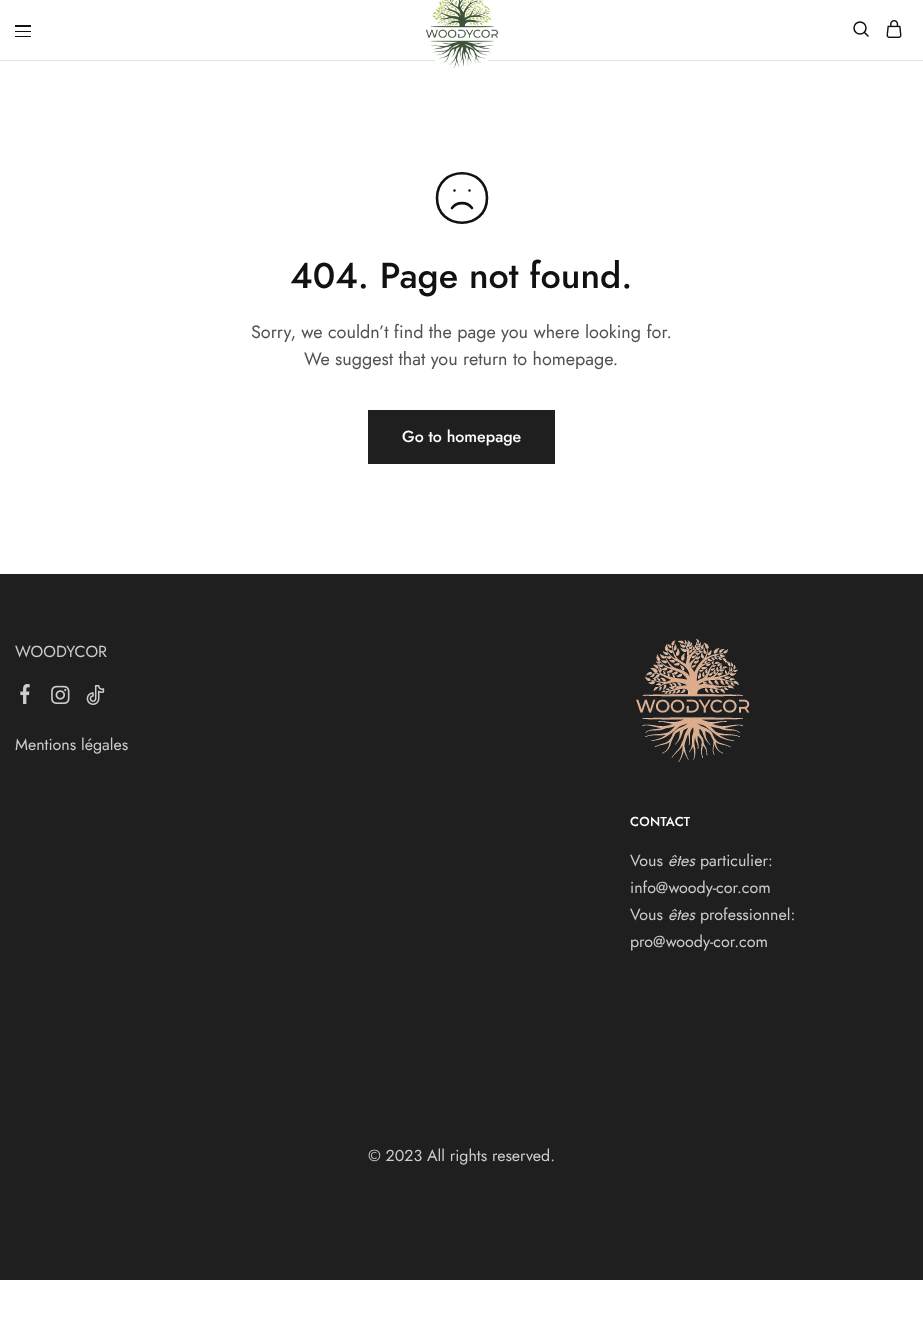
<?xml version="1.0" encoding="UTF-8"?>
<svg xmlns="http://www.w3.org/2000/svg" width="923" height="1330">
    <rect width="100%" height="100%" fill="#FFFFFF"/>
    <rect x="0" y="60" width="923" height="1" fill="#E2E2E2"/>
    <rect x="15" y="25" width="16" height="2" fill="#111111"/>
    <rect x="15" y="31" width="16" height="1" fill="#111111"/>
    <rect x="15" y="36" width="16" height="1" fill="#111111"/>
    <image x="425" y="0" width="74" height="69" href="img_01.png"/>
    <circle cx="860" cy="28" r="6" fill="none" stroke="#111111" stroke-width="1.5"/>
    <path d="M 868 36 L 864.5 32.5" fill="none" stroke="#111111" stroke-width="1.5" stroke-linecap="round" stroke-linejoin="round"/>
    <image x="886" y="20" width="16" height="18" href="img_02.png"/>
    <path d="M 472 208 C 467 201.5 457 201.5 452 208 M 454.5 190.5 H 454.5 M 469.5 190.5 H 469.5 M 487 198 C 487 231 437 231 437 198 C 437 165 487 165 487 198 Z" fill="none" stroke="#111111" stroke-width="2.6" stroke-linecap="round" stroke-linejoin="round"/>
    <text x="290" y="288" font-family="Jost" font-size="36" font-weight="500" fill="#111111">404. Page not found.</text>
    <text x="251" y="338" font-family="Jost" font-size="18" fill="#525252">Sorry, we couldn’t find the page you where looking for.</text>
    <text x="304" y="365" font-family="Jost" font-size="18" fill="#525252">We suggest that you return to homepage.</text>
    <rect x="368" y="410" width="187" height="54" fill="#1F1F1F"/>
    <text x="402" y="442" font-family="Jost" font-size="16" font-weight="500" fill="#FFFFFF">Go to homepage</text>
    <rect x="0" y="574" width="923" height="706" fill="#1F1F1F"/>
    <text x="15" y="657" font-family="Jost" font-size="16" fill="#CDCDCD">WOODYCOR</text>
    <image x="20" y="684" width="10" height="20" href="img_03.png"/>
    <image x="51" y="685" width="19" height="19" href="img_04.png"/>
    <image x="86" y="685" width="19" height="20" href="img_05.png"/>
    <text x="15" y="750" font-family="Jost" font-size="16" fill="#CDCDCD">Mentions légales</text>
    <image x="636" y="639" width="114" height="123" href="img_06.png"/>
    <text x="630" y="826" font-family="Jost" font-size="13" font-weight="500" letter-spacing="0.25" fill="#FFFFFF">CONTACT</text>
    <text x="630" y="866" font-family="Jost" font-size="16" fill="#CDCDCD">Vous</text>
    <text x="668" y="866" font-family="Jost" font-size="16" font-style="italic" fill="#CDCDCD">êtes</text>
    <text x="700" y="866" font-family="Jost" font-size="16" fill="#CDCDCD">particulier:</text>
    <text font-family="Jost" font-size="16" fill="#CDCDCD">
        <tspan x="630" y="893">info@woody-cor.com</tspan>
        <tspan x="630" y="920">Vous</tspan>
    </text>
    <text x="668" y="920" font-family="Jost" font-size="16" font-style="italic" fill="#CDCDCD">êtes</text>
    <text x="700" y="920" font-family="Jost" font-size="16" fill="#CDCDCD">professionnel:</text>
    <text x="630" y="947" font-family="Jost" font-size="16" fill="#CDCDCD">pro@woody-cor.com</text>
    <text x="368" y="1161" font-family="Jost" font-size="16" fill="#CDCDCD">© 2023 All rights reserved.</text>
</svg>
